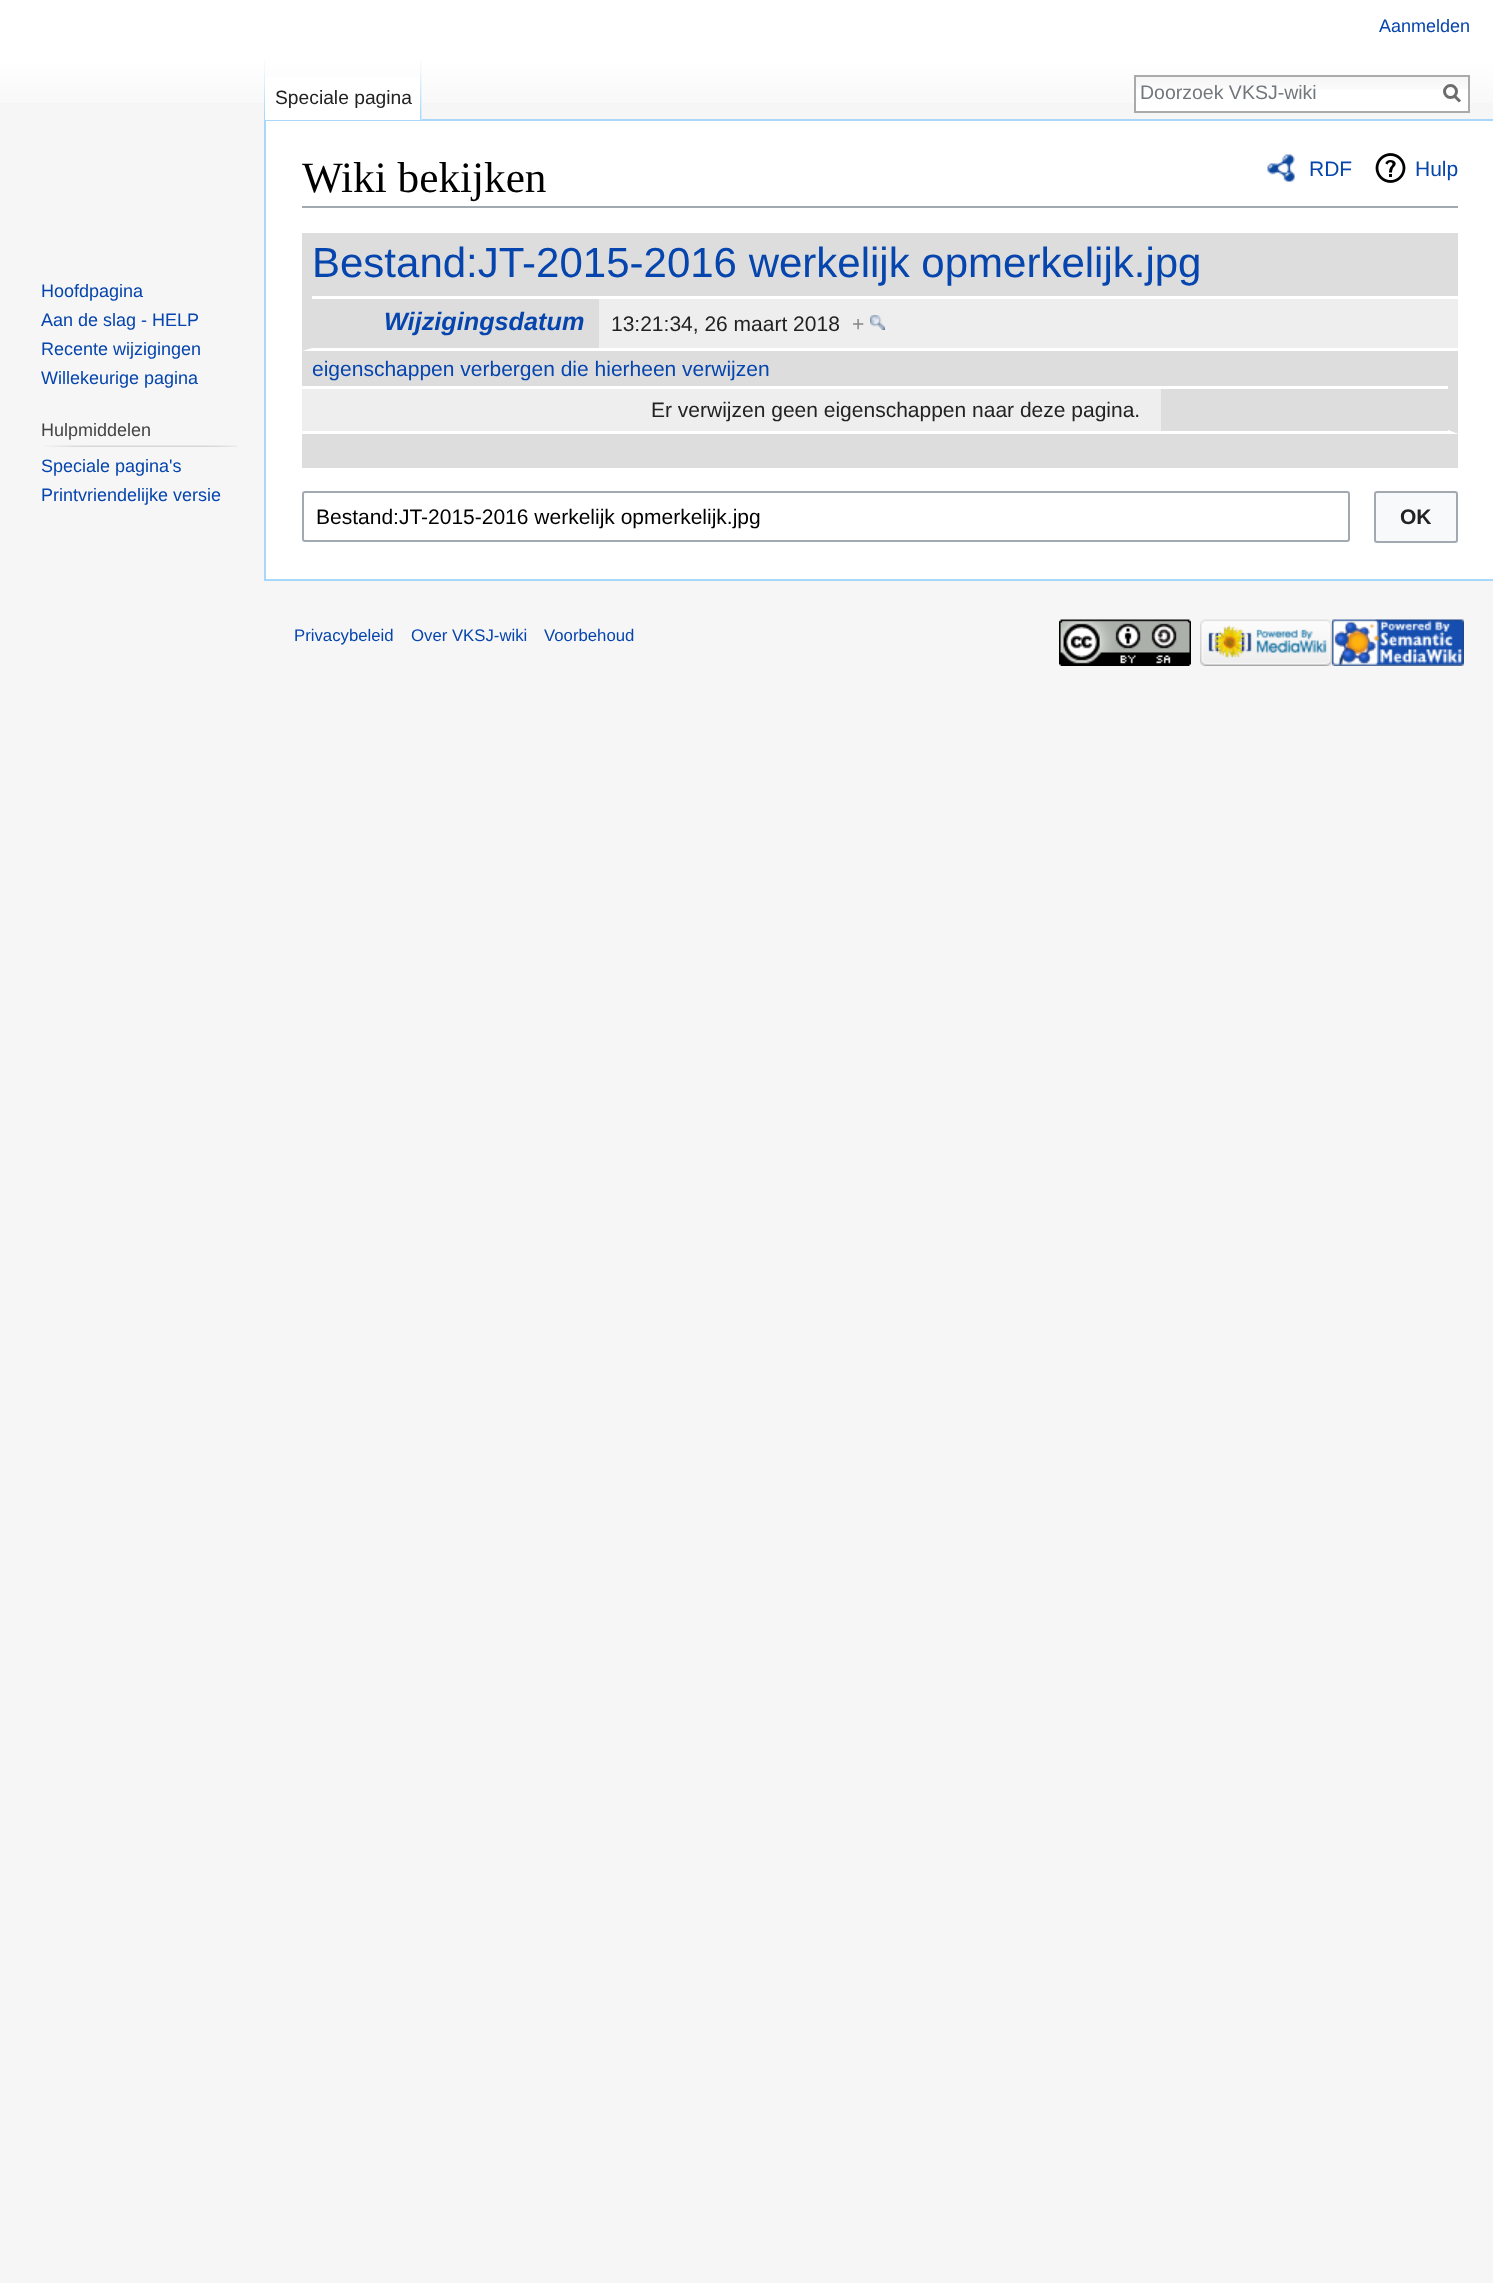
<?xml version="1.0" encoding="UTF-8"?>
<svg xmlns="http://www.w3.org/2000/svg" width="1493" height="2283">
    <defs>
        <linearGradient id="g1" gradientUnits="userSpaceOnUse" x1="747" y1="0" x2="747" y2="120"><stop offset="0.5" stop-color="#FFFFFF"/><stop offset="1" stop-color="#F6F6F6"/></linearGradient>
    </defs>
    <rect width="100%" height="100%" fill="#F6F6F6"/>
    <rect x="0" y="0" width="1493" height="103" fill="url(#g1)"/>
    <text x="1379" y="32" font-family="Liberation Sans" font-size="18" fill="#0645AD">Aanmelden</text>
    <image x="264" y="60" width="1" height="59" href="img_01.png"/>
    <rect x="264" y="119" width="1229" height="2" fill="#A7D7F9"/>
    <rect x="264" y="579" width="1229" height="2" fill="#A7D7F9"/>
    <rect x="264" y="119" width="2" height="462" fill="#A7D7F9"/>
    <rect x="265" y="77" width="157" height="43" fill="#FFFFFF"/>
    <image x="420" y="60" width="2" height="60" href="img_02.png"/>
    <text x="275" y="104" font-family="Liberation Sans" font-size="19.25" fill="#222222">Speciale pagina</text>
    <rect x="1136" y="89" width="332" height="22" fill="#FFFFFF"/>
    <image x="1136" y="77" width="332" height="12" href="img_03.png"/>
    <rect x="1135" y="76" width="334" height="36" fill="none" stroke="#AAAAAA" stroke-width="2"/>
    <text x="1140" y="99" font-family="Liberation Sans" font-size="19.5" fill="#72777D">Doorzoek VKSJ-wiki</text>
    <path d="M 1460 101.5 L 1454 95.5" fill="none" stroke="#6C6C6C" stroke-width="3"/>
    <circle cx="1450.5" cy="91.5" r="6" fill="none" stroke="#6C6C6C" stroke-width="3"/>
    <text font-family="Liberation Sans" font-size="18" fill="#0645AD">
        <tspan x="41" y="297">Hoofdpagina</tspan>
        <tspan x="41" y="326">Aan de slag - HELP</tspan>
        <tspan x="41" y="355">Recente wijzigingen</tspan>
        <tspan x="41" y="384">Willekeurige pagina</tspan>
    </text>
    <text x="41" y="436" font-family="Liberation Sans" font-size="18" fill="#444444">Hulpmiddelen</text>
    <image x="44" y="445" width="193" height="2" href="img_04.png"/>
    <text font-family="Liberation Sans" font-size="18" fill="#0645AD">
        <tspan x="41" y="472">Speciale pagina's</tspan>
        <tspan x="41" y="501">Printvriendelijke versie</tspan>
    </text>
    <rect x="266" y="121" width="1227" height="458" fill="#FFFFFF"/>
    <rect x="302" y="206" width="1156" height="2" fill="#A2A9B1"/>
    <text x="302" y="192" font-family="Liberation Serif" font-size="43.25" fill="#000000">Wiki bekijken</text>
    <image x="1267" y="154" width="28" height="28" href="img_05.png"/>
    <text x="1309" y="176" font-family="Liberation Sans" font-size="21" fill="#0645AD">RDF</text>
    <image x="1375" y="153" width="31" height="30" href="img_06.png"/>
    <text x="1415" y="176" font-family="Liberation Sans" font-size="21" fill="#0645AD">Hulp</text>
    <rect x="302" y="233" width="1156" height="63" fill="#DDDDDD"/>
    <text x="312" y="277" font-family="Liberation Sans" font-size="42" fill="#0645AD">Bestand:JT-2015-2016 werkelijk opmerkelijk.jpg</text>
    <path d="M 302 351 V 296 H 312 V 348 Z" fill="#DDDDDD"/>
    <rect x="599" y="299" width="859" height="49" fill="#EEEEEE"/>
    <rect x="312" y="299" width="287" height="49" fill="#DDDDDD"/>
    <text x="384" y="330" font-family="Liberation Sans" font-size="25.25" font-weight="700" font-style="italic" fill="#0645AD">Wijzigingsdatum</text>
    <text x="611" y="331" font-family="Liberation Sans" font-size="21" fill="#222222">13:21:34, 26 maart 2018</text>
    <text x="852" y="331" font-family="Liberation Sans" font-size="21" fill="#888888">+</text>
    <image x="870" y="315" width="15" height="15" href="img_07.png"/>
    <rect x="302" y="351" width="1156" height="35" fill="#DDDDDD"/>
    <text x="312" y="376" font-family="Liberation Sans" font-size="21" fill="#0645AD">eigenschappen verbergen die hierheen verwijzen</text>
    <path d="M 1458 386 V 434 L 1448 430 V 386 Z" fill="#DDDDDD"/>
    <path d="M 1458 434 H 302 V 430 H 1448 Z" fill="#FFFFFF"/>
    <rect x="302" y="389" width="859" height="42" fill="#EEEEEE"/>
    <text x="651" y="417" font-family="Liberation Sans" font-size="21" fill="#222222">Er verwijzen geen eigenschappen naar deze pagina.</text>
    <rect x="1161" y="389" width="287" height="42" fill="#DDDDDD"/>
    <rect x="302" y="434" width="1156" height="34" fill="#DDDDDD"/>
    <rect x="303" y="492" width="1046" height="49" rx="2" fill="none" stroke="#A2A9B1" stroke-width="2"/>
    <text x="316" y="524" font-family="Liberation Sans" font-size="21" fill="#000000">Bestand:JT-2015-2016 werkelijk opmerkelijk.jpg</text>
    <rect x="1375" y="492" width="82" height="50" rx="2" fill="#F8F9FA" stroke="#A2A9B1" stroke-width="2"/>
    <text x="1400" y="524" font-family="Liberation Sans" font-size="21" font-weight="700" fill="#222222">OK</text>
    <text x="294" y="641" font-family="Liberation Sans" font-size="16.75" fill="#0645AD">Privacybeleid</text>
    <text x="411" y="641" font-family="Liberation Sans" font-size="16.75" fill="#0645AD">Over VKSJ-wiki</text>
    <text x="544" y="641" font-family="Liberation Sans" font-size="16.75" fill="#0645AD">Voorbehoud</text>
    <image x="1059" y="619" width="132" height="47" href="img_08.png"/>
    <image x="1200" y="619" width="132" height="47" href="img_09.png"/>
    <image x="1332" y="619" width="132" height="47" href="img_10.png"/>
</svg>
